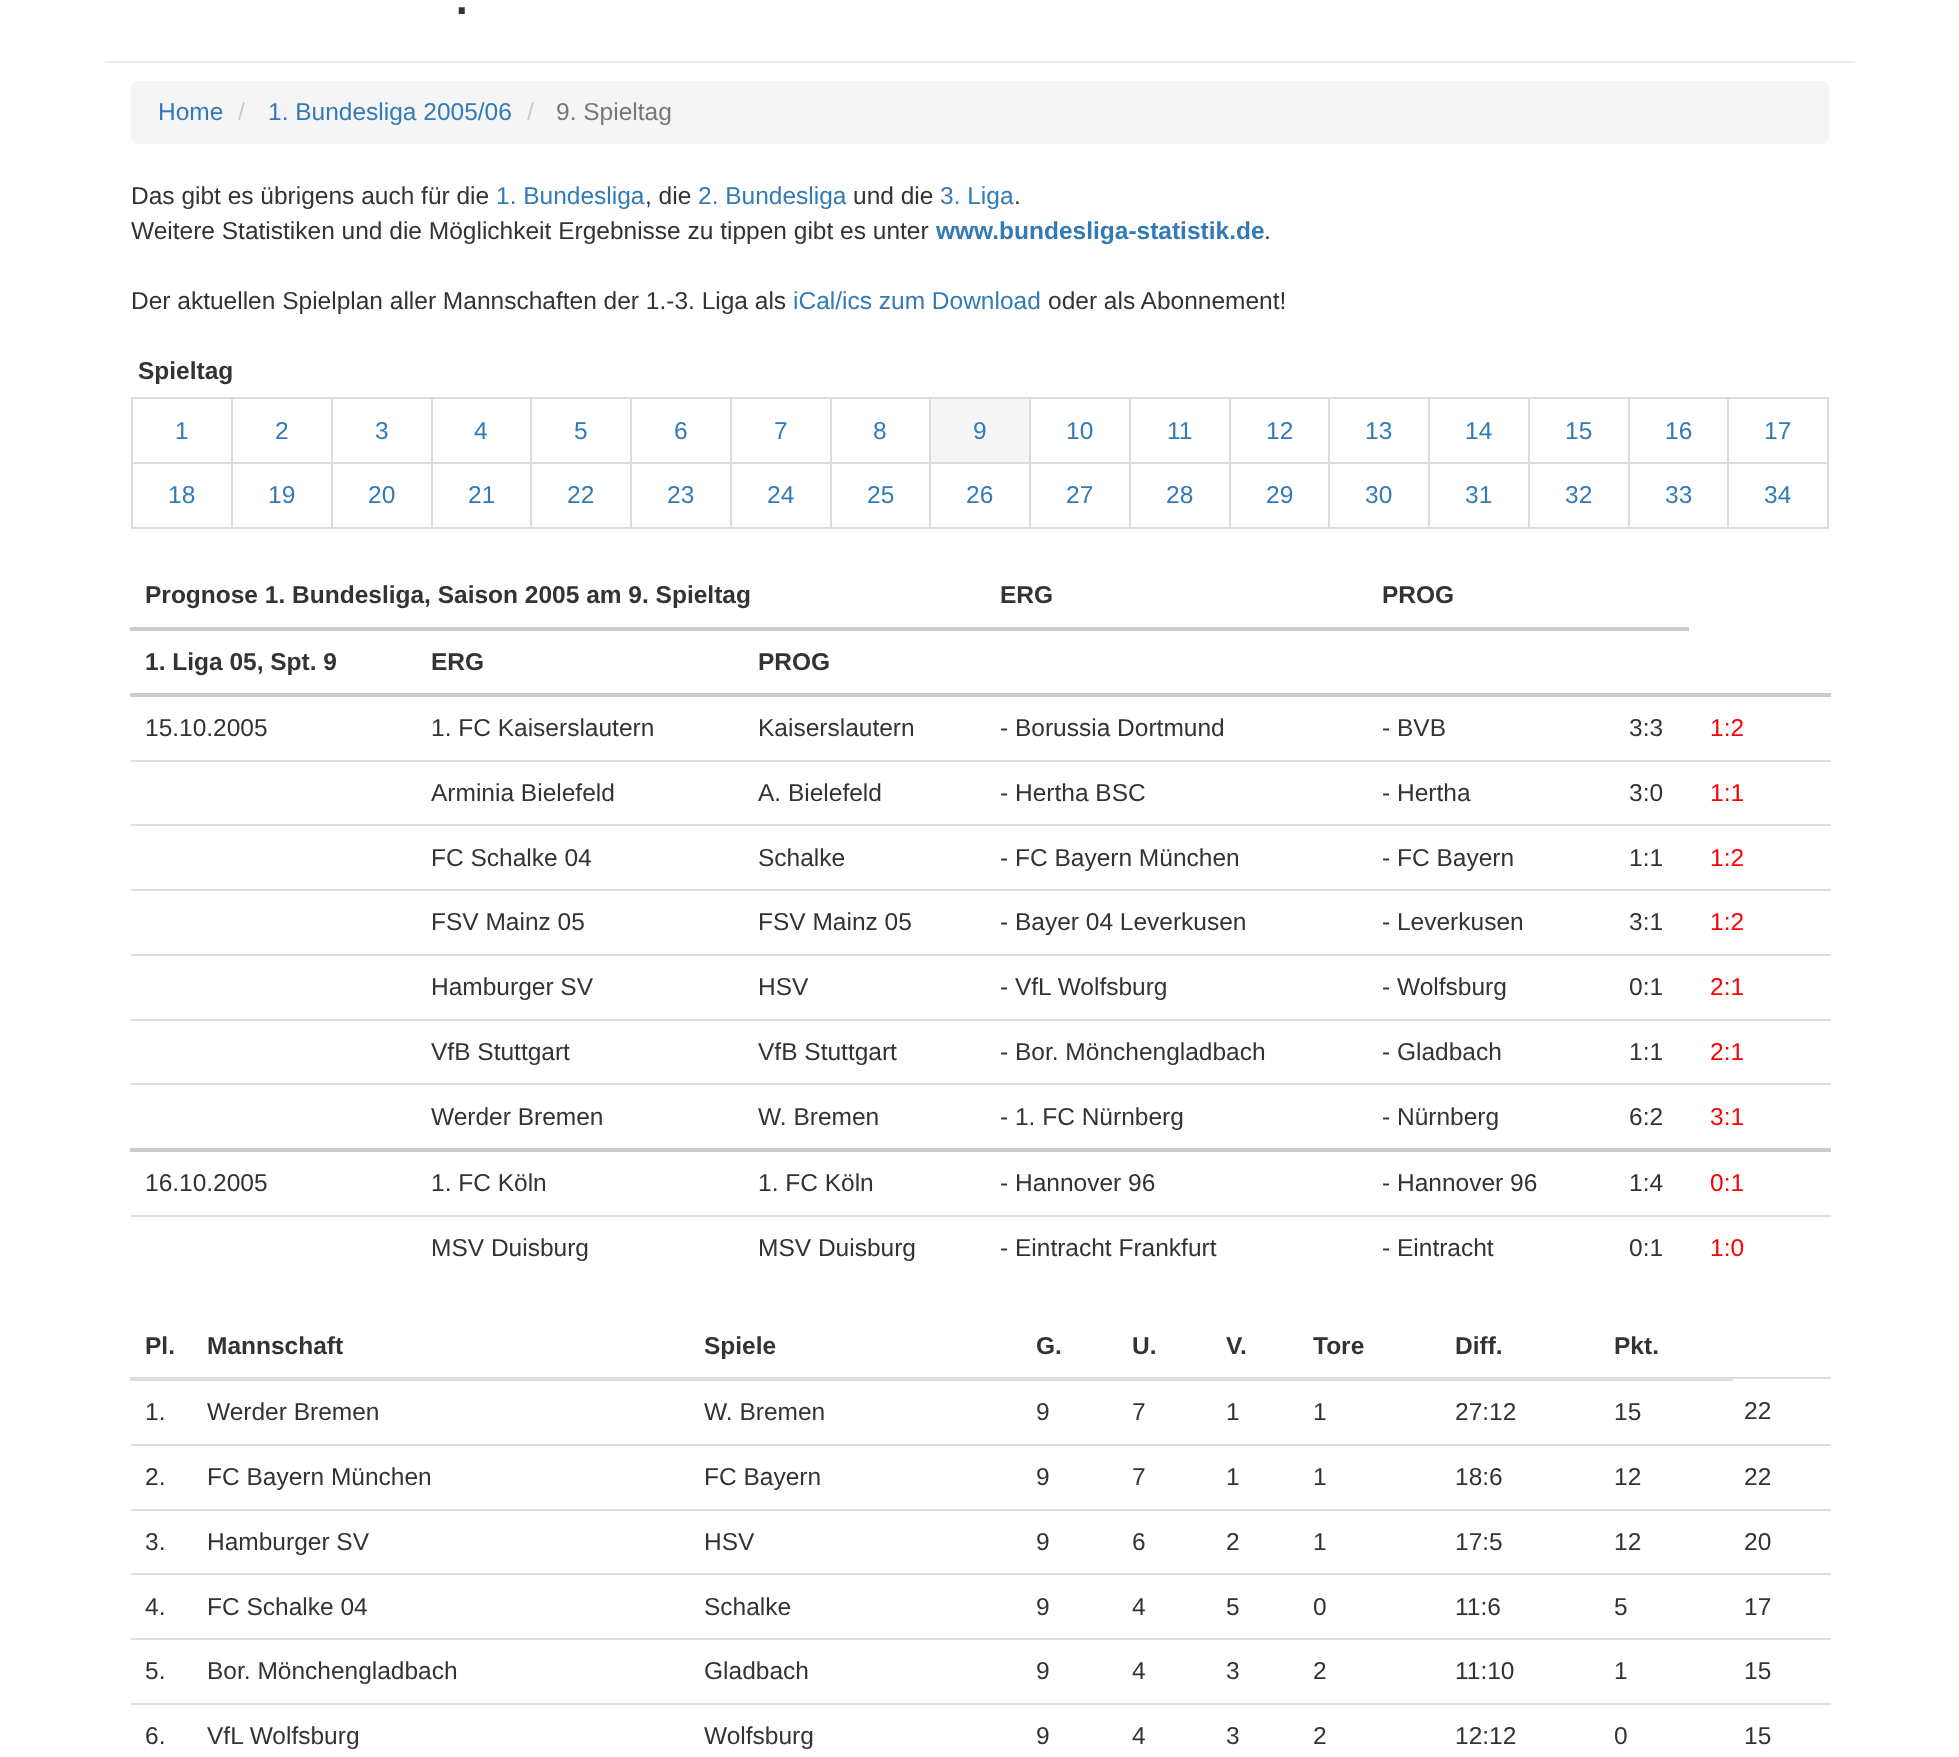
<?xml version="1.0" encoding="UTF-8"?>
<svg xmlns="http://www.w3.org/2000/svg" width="1959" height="1757">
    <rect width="100%" height="100%" fill="#FFFFFF"/>
    <rect x="105" y="61" width="1750" height="2" fill="#EEEEEE"/>
    <text x="453" y="14" font-family="Liberation Sans" font-size="63" fill="#333333">.</text>
    <rect x="131" y="81" width="1698" height="63" rx="7" fill="#F5F5F5"/>
    <text x="158" y="120" font-family="Liberation Sans" font-size="24.5" fill="#337AB7">Home</text>
    <text x="238" y="120" font-family="Liberation Sans" font-size="24.5" fill="#CCCCCC">/</text>
    <text x="268" y="120" font-family="Liberation Sans" font-size="24.5" fill="#337AB7">1. Bundesliga 2005/06</text>
    <text x="527" y="120" font-family="Liberation Sans" font-size="24.5" fill="#CCCCCC">/</text>
    <text x="556" y="120" font-family="Liberation Sans" font-size="24.5" fill="#777777">9. Spieltag</text>
    <text x="131" y="204" font-family="Liberation Sans" font-size="24.5" fill="#333333">Das gibt es übrigens auch für die</text>
    <text x="496" y="204" font-family="Liberation Sans" font-size="24.5" fill="#337AB7">1. Bundesliga</text>
    <text x="645" y="204" font-family="Liberation Sans" font-size="24.5" fill="#333333">, die</text>
    <text x="698" y="204" font-family="Liberation Sans" font-size="24.5" fill="#337AB7">2. Bundesliga</text>
    <text x="853" y="204" font-family="Liberation Sans" font-size="24.5" fill="#333333">und die</text>
    <text x="940" y="204" font-family="Liberation Sans" font-size="24.5" fill="#337AB7">3. Liga</text>
    <text x="1014" y="204" font-family="Liberation Sans" font-size="24.5" fill="#333333">.</text>
    <text x="131" y="239" font-family="Liberation Sans" font-size="24.5" fill="#333333">Weitere Statistiken und die Möglichkeit Ergebnisse zu tippen gibt es unter</text>
    <text x="936" y="239" font-family="Liberation Sans" font-size="24.5" font-weight="700" fill="#337AB7">www.bundesliga-statistik.de</text>
    <text x="1264" y="239" font-family="Liberation Sans" font-size="24.5" fill="#333333">.</text>
    <text x="131" y="309" font-family="Liberation Sans" font-size="24.5" fill="#333333">Der aktuellen Spielplan aller Mannschaften der 1.-3. Liga als</text>
    <text x="793" y="309" font-family="Liberation Sans" font-size="24.5" fill="#337AB7">iCal/ics zum Download</text>
    <text x="1048" y="309" font-family="Liberation Sans" font-size="24.5" fill="#333333">oder als Abonnement!</text>
    <text x="138" y="379" font-family="Liberation Sans" font-size="24.5" font-weight="700" fill="#333333">Spieltag</text>
    <rect x="131" y="397" width="1698" height="2" fill="#DDDDDD"/>
    <rect x="1827" y="397" width="2" height="132" fill="#DDDDDD"/>
    <rect x="131" y="527" width="1698" height="2" fill="#DDDDDD"/>
    <rect x="131" y="397" width="2" height="132" fill="#DDDDDD"/>
    <text x="175" y="439" font-family="Liberation Sans" font-size="24.5" fill="#337AB7">1</text>
    <rect x="1727" y="462" width="102" height="2" fill="#DDDDDD"/>
    <rect x="1727" y="462" width="2" height="67" fill="#DDDDDD"/>
    <rect x="1628" y="462" width="101" height="2" fill="#DDDDDD"/>
    <rect x="1628" y="462" width="2" height="67" fill="#DDDDDD"/>
    <rect x="1528" y="462" width="101" height="2" fill="#DDDDDD"/>
    <rect x="1528" y="462" width="2" height="67" fill="#DDDDDD"/>
    <rect x="1428" y="462" width="102" height="2" fill="#DDDDDD"/>
    <rect x="1428" y="462" width="2" height="67" fill="#DDDDDD"/>
    <rect x="1328" y="462" width="102" height="2" fill="#DDDDDD"/>
    <rect x="1328" y="462" width="2" height="67" fill="#DDDDDD"/>
    <rect x="1229" y="462" width="101" height="2" fill="#DDDDDD"/>
    <rect x="1229" y="462" width="2" height="67" fill="#DDDDDD"/>
    <rect x="1129" y="462" width="101" height="2" fill="#DDDDDD"/>
    <rect x="1129" y="462" width="2" height="67" fill="#DDDDDD"/>
    <rect x="1029" y="462" width="102" height="2" fill="#DDDDDD"/>
    <rect x="1029" y="462" width="2" height="67" fill="#DDDDDD"/>
    <rect x="929" y="462" width="102" height="2" fill="#DDDDDD"/>
    <rect x="929" y="462" width="2" height="67" fill="#DDDDDD"/>
    <rect x="830" y="462" width="101" height="2" fill="#DDDDDD"/>
    <rect x="830" y="462" width="2" height="67" fill="#DDDDDD"/>
    <rect x="730" y="462" width="101" height="2" fill="#DDDDDD"/>
    <rect x="730" y="462" width="2" height="67" fill="#DDDDDD"/>
    <rect x="630" y="462" width="102" height="2" fill="#DDDDDD"/>
    <rect x="630" y="462" width="2" height="67" fill="#DDDDDD"/>
    <rect x="530" y="462" width="102" height="2" fill="#DDDDDD"/>
    <rect x="530" y="462" width="2" height="67" fill="#DDDDDD"/>
    <rect x="431" y="462" width="101" height="2" fill="#DDDDDD"/>
    <rect x="431" y="462" width="2" height="67" fill="#DDDDDD"/>
    <rect x="331" y="462" width="101" height="2" fill="#DDDDDD"/>
    <rect x="331" y="462" width="2" height="67" fill="#DDDDDD"/>
    <rect x="231" y="462" width="102" height="2" fill="#DDDDDD"/>
    <rect x="231" y="462" width="2" height="67" fill="#DDDDDD"/>
    <rect x="131" y="462" width="102" height="2" fill="#DDDDDD"/>
    <rect x="231" y="397" width="2" height="67" fill="#DDDDDD"/>
    <text x="275" y="439" font-family="Liberation Sans" font-size="24.5" fill="#337AB7">2</text>
    <rect x="331" y="397" width="2" height="67" fill="#DDDDDD"/>
    <text x="375" y="439" font-family="Liberation Sans" font-size="24.5" fill="#337AB7">3</text>
    <rect x="431" y="397" width="2" height="67" fill="#DDDDDD"/>
    <text x="474" y="439" font-family="Liberation Sans" font-size="24.5" fill="#337AB7">4</text>
    <rect x="530" y="397" width="2" height="67" fill="#DDDDDD"/>
    <text x="574" y="439" font-family="Liberation Sans" font-size="24.5" fill="#337AB7">5</text>
    <rect x="630" y="397" width="2" height="67" fill="#DDDDDD"/>
    <text x="674" y="439" font-family="Liberation Sans" font-size="24.5" fill="#337AB7">6</text>
    <rect x="730" y="397" width="2" height="67" fill="#DDDDDD"/>
    <text x="774" y="439" font-family="Liberation Sans" font-size="24.5" fill="#337AB7">7</text>
    <rect x="830" y="397" width="2" height="67" fill="#DDDDDD"/>
    <text x="873" y="439" font-family="Liberation Sans" font-size="24.5" fill="#337AB7">8</text>
    <rect x="931" y="399" width="98" height="63" fill="#F5F5F5"/>
    <rect x="929" y="397" width="2" height="67" fill="#DDDDDD"/>
    <text x="973" y="439" font-family="Liberation Sans" font-size="24.5" fill="#337AB7">9</text>
    <rect x="1029" y="397" width="2" height="67" fill="#DDDDDD"/>
    <text x="1066" y="439" font-family="Liberation Sans" font-size="24.5" fill="#337AB7">10</text>
    <rect x="1129" y="397" width="2" height="67" fill="#DDDDDD"/>
    <text x="1167" y="439" font-family="Liberation Sans" font-size="24.5" fill="#337AB7">11</text>
    <rect x="1229" y="397" width="2" height="67" fill="#DDDDDD"/>
    <text x="1266" y="439" font-family="Liberation Sans" font-size="24.5" fill="#337AB7">12</text>
    <rect x="1328" y="397" width="2" height="67" fill="#DDDDDD"/>
    <text x="1365" y="439" font-family="Liberation Sans" font-size="24.5" fill="#337AB7">13</text>
    <rect x="1428" y="397" width="2" height="67" fill="#DDDDDD"/>
    <text x="1465" y="439" font-family="Liberation Sans" font-size="24.5" fill="#337AB7">14</text>
    <rect x="1528" y="397" width="2" height="67" fill="#DDDDDD"/>
    <text x="1565" y="439" font-family="Liberation Sans" font-size="24.5" fill="#337AB7">15</text>
    <rect x="1628" y="397" width="2" height="67" fill="#DDDDDD"/>
    <text x="1665" y="439" font-family="Liberation Sans" font-size="24.5" fill="#337AB7">16</text>
    <rect x="1727" y="397" width="2" height="67" fill="#DDDDDD"/>
    <text x="1764" y="439" font-family="Liberation Sans" font-size="24.5" fill="#337AB7">17</text>
    <text x="168" y="503" font-family="Liberation Sans" font-size="24.5" fill="#337AB7">18</text>
    <text x="268" y="503" font-family="Liberation Sans" font-size="24.5" fill="#337AB7">19</text>
    <text x="368" y="503" font-family="Liberation Sans" font-size="24.5" fill="#337AB7">20</text>
    <text x="468" y="503" font-family="Liberation Sans" font-size="24.5" fill="#337AB7">21</text>
    <text x="567" y="503" font-family="Liberation Sans" font-size="24.5" fill="#337AB7">22</text>
    <text x="667" y="503" font-family="Liberation Sans" font-size="24.5" fill="#337AB7">23</text>
    <text x="767" y="503" font-family="Liberation Sans" font-size="24.5" fill="#337AB7">24</text>
    <text x="867" y="503" font-family="Liberation Sans" font-size="24.5" fill="#337AB7">25</text>
    <text x="966" y="503" font-family="Liberation Sans" font-size="24.5" fill="#337AB7">26</text>
    <text x="1066" y="503" font-family="Liberation Sans" font-size="24.5" fill="#337AB7">27</text>
    <text x="1166" y="503" font-family="Liberation Sans" font-size="24.5" fill="#337AB7">28</text>
    <text x="1266" y="503" font-family="Liberation Sans" font-size="24.5" fill="#337AB7">29</text>
    <text x="1365" y="503" font-family="Liberation Sans" font-size="24.5" fill="#337AB7">30</text>
    <text x="1465" y="503" font-family="Liberation Sans" font-size="24.5" fill="#337AB7">31</text>
    <text x="1565" y="503" font-family="Liberation Sans" font-size="24.5" fill="#337AB7">32</text>
    <text x="1665" y="503" font-family="Liberation Sans" font-size="24.5" fill="#337AB7">33</text>
    <text x="1764" y="503" font-family="Liberation Sans" font-size="24.5" fill="#337AB7">34</text>
    <text x="145" y="603" font-family="Liberation Sans" font-size="24.5" font-weight="700" fill="#333333">Prognose 1. Bundesliga, Saison 2005 am 9. Spieltag</text>
    <text x="1000" y="603" font-family="Liberation Sans" font-size="24.5" font-weight="700" fill="#333333">ERG</text>
    <text x="1382" y="603" font-family="Liberation Sans" font-size="24.5" font-weight="700" fill="#333333">PROG</text>
    <rect x="130" y="627" width="1559" height="4" fill="#CCCCCC"/>
    <text x="145" y="670" font-family="Liberation Sans" font-size="24.5" font-weight="700" fill="#333333">1. Liga 05, Spt. 9</text>
    <text x="431" y="670" font-family="Liberation Sans" font-size="24.5" font-weight="700" fill="#333333">ERG</text>
    <text x="758" y="670" font-family="Liberation Sans" font-size="24.5" font-weight="700" fill="#333333">PROG</text>
    <rect x="130" y="693" width="1701" height="4" fill="#CCCCCC"/>
    <text x="145" y="736" font-family="Liberation Sans" font-size="24.5" fill="#333333">15.10.2005</text>
    <text x="431" y="736" font-family="Liberation Sans" font-size="24.5" fill="#333333">1. FC Kaiserslautern</text>
    <text x="758" y="736" font-family="Liberation Sans" font-size="24.5" fill="#333333">Kaiserslautern</text>
    <text x="1000" y="736" font-family="Liberation Sans" font-size="24.5" fill="#333333">- Borussia Dortmund</text>
    <text x="1382" y="736" font-family="Liberation Sans" font-size="24.5" fill="#333333">- BVB</text>
    <text x="1629" y="736" font-family="Liberation Sans" font-size="24.5" fill="#333333">3:3</text>
    <text x="1710" y="736" font-family="Liberation Sans" font-size="24.5" fill="#FF0000">1:2</text>
    <rect x="131" y="760" width="1700" height="2" fill="#DDDDDD"/>
    <text x="431" y="801" font-family="Liberation Sans" font-size="24.5" fill="#333333">Arminia Bielefeld</text>
    <text x="758" y="801" font-family="Liberation Sans" font-size="24.5" fill="#333333">A. Bielefeld</text>
    <text x="1000" y="801" font-family="Liberation Sans" font-size="24.5" fill="#333333">- Hertha BSC</text>
    <text x="1382" y="801" font-family="Liberation Sans" font-size="24.5" fill="#333333">- Hertha</text>
    <text x="1629" y="801" font-family="Liberation Sans" font-size="24.5" fill="#333333">3:0</text>
    <text x="1710" y="801" font-family="Liberation Sans" font-size="24.5" fill="#FF0000">1:1</text>
    <rect x="131" y="824" width="1700" height="2" fill="#DDDDDD"/>
    <text x="431" y="866" font-family="Liberation Sans" font-size="24.5" fill="#333333">FC Schalke 04</text>
    <text x="758" y="866" font-family="Liberation Sans" font-size="24.5" fill="#333333">Schalke</text>
    <text x="1000" y="866" font-family="Liberation Sans" font-size="24.5" fill="#333333">- FC Bayern München</text>
    <text x="1382" y="866" font-family="Liberation Sans" font-size="24.5" fill="#333333">- FC Bayern</text>
    <text x="1629" y="866" font-family="Liberation Sans" font-size="24.5" fill="#333333">1:1</text>
    <text x="1710" y="866" font-family="Liberation Sans" font-size="24.5" fill="#FF0000">1:2</text>
    <rect x="131" y="889" width="1700" height="2" fill="#DDDDDD"/>
    <text x="431" y="930" font-family="Liberation Sans" font-size="24.5" fill="#333333">FSV Mainz 05</text>
    <text x="758" y="930" font-family="Liberation Sans" font-size="24.5" fill="#333333">FSV Mainz 05</text>
    <text x="1000" y="930" font-family="Liberation Sans" font-size="24.5" fill="#333333">- Bayer 04 Leverkusen</text>
    <text x="1382" y="930" font-family="Liberation Sans" font-size="24.5" fill="#333333">- Leverkusen</text>
    <text x="1629" y="930" font-family="Liberation Sans" font-size="24.5" fill="#333333">3:1</text>
    <text x="1710" y="930" font-family="Liberation Sans" font-size="24.5" fill="#FF0000">1:2</text>
    <rect x="131" y="954" width="1700" height="2" fill="#DDDDDD"/>
    <text x="431" y="995" font-family="Liberation Sans" font-size="24.5" fill="#333333">Hamburger SV</text>
    <text x="758" y="995" font-family="Liberation Sans" font-size="24.5" fill="#333333">HSV</text>
    <text x="1000" y="995" font-family="Liberation Sans" font-size="24.5" fill="#333333">- VfL Wolfsburg</text>
    <text x="1382" y="995" font-family="Liberation Sans" font-size="24.5" fill="#333333">- Wolfsburg</text>
    <text x="1629" y="995" font-family="Liberation Sans" font-size="24.5" fill="#333333">0:1</text>
    <text x="1710" y="995" font-family="Liberation Sans" font-size="24.5" fill="#FF0000">2:1</text>
    <rect x="131" y="1019" width="1700" height="2" fill="#DDDDDD"/>
    <text x="431" y="1060" font-family="Liberation Sans" font-size="24.5" fill="#333333">VfB Stuttgart</text>
    <text x="758" y="1060" font-family="Liberation Sans" font-size="24.5" fill="#333333">VfB Stuttgart</text>
    <text x="1000" y="1060" font-family="Liberation Sans" font-size="24.5" fill="#333333">- Bor. Mönchengladbach</text>
    <text x="1382" y="1060" font-family="Liberation Sans" font-size="24.5" fill="#333333">- Gladbach</text>
    <text x="1629" y="1060" font-family="Liberation Sans" font-size="24.5" fill="#333333">1:1</text>
    <text x="1710" y="1060" font-family="Liberation Sans" font-size="24.5" fill="#FF0000">2:1</text>
    <rect x="131" y="1083" width="1700" height="2" fill="#DDDDDD"/>
    <text x="431" y="1125" font-family="Liberation Sans" font-size="24.5" fill="#333333">Werder Bremen</text>
    <text x="758" y="1125" font-family="Liberation Sans" font-size="24.5" fill="#333333">W. Bremen</text>
    <text x="1000" y="1125" font-family="Liberation Sans" font-size="24.5" fill="#333333">- 1. FC Nürnberg</text>
    <text x="1382" y="1125" font-family="Liberation Sans" font-size="24.5" fill="#333333">- Nürnberg</text>
    <text x="1629" y="1125" font-family="Liberation Sans" font-size="24.5" fill="#333333">6:2</text>
    <text x="1710" y="1125" font-family="Liberation Sans" font-size="24.5" fill="#FF0000">3:1</text>
    <rect x="130" y="1148" width="1701" height="4" fill="#CCCCCC"/>
    <text x="145" y="1191" font-family="Liberation Sans" font-size="24.5" fill="#333333">16.10.2005</text>
    <text x="431" y="1191" font-family="Liberation Sans" font-size="24.5" fill="#333333">1. FC Köln</text>
    <text x="758" y="1191" font-family="Liberation Sans" font-size="24.5" fill="#333333">1. FC Köln</text>
    <text x="1000" y="1191" font-family="Liberation Sans" font-size="24.5" fill="#333333">- Hannover 96</text>
    <text x="1382" y="1191" font-family="Liberation Sans" font-size="24.5" fill="#333333">- Hannover 96</text>
    <text x="1629" y="1191" font-family="Liberation Sans" font-size="24.5" fill="#333333">1:4</text>
    <text x="1710" y="1191" font-family="Liberation Sans" font-size="24.5" fill="#FF0000">0:1</text>
    <rect x="131" y="1215" width="1700" height="2" fill="#DDDDDD"/>
    <text x="431" y="1256" font-family="Liberation Sans" font-size="24.5" fill="#333333">MSV Duisburg</text>
    <text x="758" y="1256" font-family="Liberation Sans" font-size="24.5" fill="#333333">MSV Duisburg</text>
    <text x="1000" y="1256" font-family="Liberation Sans" font-size="24.5" fill="#333333">- Eintracht Frankfurt</text>
    <text x="1382" y="1256" font-family="Liberation Sans" font-size="24.5" fill="#333333">- Eintracht</text>
    <text x="1629" y="1256" font-family="Liberation Sans" font-size="24.5" fill="#333333">0:1</text>
    <text x="1710" y="1256" font-family="Liberation Sans" font-size="24.5" fill="#FF0000">1:0</text>
    <text x="145" y="1354" font-family="Liberation Sans" font-size="24.5" font-weight="700" fill="#333333">Pl.</text>
    <text x="207" y="1354" font-family="Liberation Sans" font-size="24.5" font-weight="700" fill="#333333">Mannschaft</text>
    <text x="704" y="1354" font-family="Liberation Sans" font-size="24.5" font-weight="700" fill="#333333">Spiele</text>
    <text x="1036" y="1354" font-family="Liberation Sans" font-size="24.5" font-weight="700" fill="#333333">G.</text>
    <text x="1132" y="1354" font-family="Liberation Sans" font-size="24.5" font-weight="700" fill="#333333">U.</text>
    <text x="1226" y="1354" font-family="Liberation Sans" font-size="24.5" font-weight="700" fill="#333333">V.</text>
    <text x="1313" y="1354" font-family="Liberation Sans" font-size="24.5" font-weight="700" fill="#333333">Tore</text>
    <text x="1455" y="1354" font-family="Liberation Sans" font-size="24.5" font-weight="700" fill="#333333">Diff.</text>
    <rect x="1729" y="1377" width="102" height="2" fill="#DDDDDD"/>
    <rect x="130" y="1377" width="1603" height="4" fill="#DDDDDD"/>
    <text x="1614" y="1354" font-family="Liberation Sans" font-size="24.5" font-weight="700" fill="#333333">Pkt.</text>
    <text x="145" y="1420" font-family="Liberation Sans" font-size="24.5" fill="#333333">1.</text>
    <text x="207" y="1420" font-family="Liberation Sans" font-size="24.5" fill="#333333">Werder Bremen</text>
    <text x="704" y="1420" font-family="Liberation Sans" font-size="24.5" fill="#333333">W. Bremen</text>
    <text x="1036" y="1420" font-family="Liberation Sans" font-size="24.5" fill="#333333">9</text>
    <text x="1132" y="1420" font-family="Liberation Sans" font-size="24.5" fill="#333333">7</text>
    <text x="1226" y="1420" font-family="Liberation Sans" font-size="24.5" fill="#333333">1</text>
    <text x="1313" y="1420" font-family="Liberation Sans" font-size="24.5" fill="#333333">1</text>
    <text x="1455" y="1420" font-family="Liberation Sans" font-size="24.5" fill="#333333">27:12</text>
    <text x="1614" y="1420" font-family="Liberation Sans" font-size="24.5" fill="#333333">15</text>
    <text x="1744" y="1419" font-family="Liberation Sans" font-size="24.5" fill="#333333">22</text>
    <text x="145" y="1485" font-family="Liberation Sans" font-size="24.5" fill="#333333">2.</text>
    <text x="207" y="1485" font-family="Liberation Sans" font-size="24.5" fill="#333333">FC Bayern München</text>
    <text x="704" y="1485" font-family="Liberation Sans" font-size="24.5" fill="#333333">FC Bayern</text>
    <text x="1036" y="1485" font-family="Liberation Sans" font-size="24.5" fill="#333333">9</text>
    <text x="1132" y="1485" font-family="Liberation Sans" font-size="24.5" fill="#333333">7</text>
    <text x="1226" y="1485" font-family="Liberation Sans" font-size="24.5" fill="#333333">1</text>
    <text x="1313" y="1485" font-family="Liberation Sans" font-size="24.5" fill="#333333">1</text>
    <text x="1455" y="1485" font-family="Liberation Sans" font-size="24.5" fill="#333333">18:6</text>
    <text x="1614" y="1485" font-family="Liberation Sans" font-size="24.5" fill="#333333">12</text>
    <rect x="131" y="1444" width="1700" height="2" fill="#DDDDDD"/>
    <text x="1744" y="1485" font-family="Liberation Sans" font-size="24.5" fill="#333333">22</text>
    <text x="145" y="1550" font-family="Liberation Sans" font-size="24.5" fill="#333333">3.</text>
    <text x="207" y="1550" font-family="Liberation Sans" font-size="24.5" fill="#333333">Hamburger SV</text>
    <text x="704" y="1550" font-family="Liberation Sans" font-size="24.5" fill="#333333">HSV</text>
    <text x="1036" y="1550" font-family="Liberation Sans" font-size="24.5" fill="#333333">9</text>
    <text x="1132" y="1550" font-family="Liberation Sans" font-size="24.5" fill="#333333">6</text>
    <text x="1226" y="1550" font-family="Liberation Sans" font-size="24.5" fill="#333333">2</text>
    <text x="1313" y="1550" font-family="Liberation Sans" font-size="24.5" fill="#333333">1</text>
    <text x="1455" y="1550" font-family="Liberation Sans" font-size="24.5" fill="#333333">17:5</text>
    <text x="1614" y="1550" font-family="Liberation Sans" font-size="24.5" fill="#333333">12</text>
    <rect x="131" y="1509" width="1700" height="2" fill="#DDDDDD"/>
    <text x="1744" y="1550" font-family="Liberation Sans" font-size="24.5" fill="#333333">20</text>
    <text x="145" y="1615" font-family="Liberation Sans" font-size="24.5" fill="#333333">4.</text>
    <text x="207" y="1615" font-family="Liberation Sans" font-size="24.5" fill="#333333">FC Schalke 04</text>
    <text x="704" y="1615" font-family="Liberation Sans" font-size="24.5" fill="#333333">Schalke</text>
    <text x="1036" y="1615" font-family="Liberation Sans" font-size="24.5" fill="#333333">9</text>
    <text x="1132" y="1615" font-family="Liberation Sans" font-size="24.5" fill="#333333">4</text>
    <text x="1226" y="1615" font-family="Liberation Sans" font-size="24.5" fill="#333333">5</text>
    <text x="1313" y="1615" font-family="Liberation Sans" font-size="24.5" fill="#333333">0</text>
    <text x="1455" y="1615" font-family="Liberation Sans" font-size="24.5" fill="#333333">11:6</text>
    <text x="1614" y="1615" font-family="Liberation Sans" font-size="24.5" fill="#333333">5</text>
    <rect x="131" y="1573" width="1700" height="2" fill="#DDDDDD"/>
    <text x="1744" y="1615" font-family="Liberation Sans" font-size="24.5" fill="#333333">17</text>
    <text x="145" y="1679" font-family="Liberation Sans" font-size="24.5" fill="#333333">5.</text>
    <text x="207" y="1679" font-family="Liberation Sans" font-size="24.5" fill="#333333">Bor. Mönchengladbach</text>
    <text x="704" y="1679" font-family="Liberation Sans" font-size="24.5" fill="#333333">Gladbach</text>
    <text x="1036" y="1679" font-family="Liberation Sans" font-size="24.5" fill="#333333">9</text>
    <text x="1132" y="1679" font-family="Liberation Sans" font-size="24.5" fill="#333333">4</text>
    <text x="1226" y="1679" font-family="Liberation Sans" font-size="24.5" fill="#333333">3</text>
    <text x="1313" y="1679" font-family="Liberation Sans" font-size="24.5" fill="#333333">2</text>
    <text x="1455" y="1679" font-family="Liberation Sans" font-size="24.5" fill="#333333">11:10</text>
    <text x="1614" y="1679" font-family="Liberation Sans" font-size="24.5" fill="#333333">1</text>
    <rect x="131" y="1638" width="1700" height="2" fill="#DDDDDD"/>
    <text x="1744" y="1679" font-family="Liberation Sans" font-size="24.5" fill="#333333">15</text>
    <text x="145" y="1744" font-family="Liberation Sans" font-size="24.5" fill="#333333">6.</text>
    <text x="207" y="1744" font-family="Liberation Sans" font-size="24.5" fill="#333333">VfL Wolfsburg</text>
    <text x="704" y="1744" font-family="Liberation Sans" font-size="24.5" fill="#333333">Wolfsburg</text>
    <text x="1036" y="1744" font-family="Liberation Sans" font-size="24.5" fill="#333333">9</text>
    <text x="1132" y="1744" font-family="Liberation Sans" font-size="24.5" fill="#333333">4</text>
    <text x="1226" y="1744" font-family="Liberation Sans" font-size="24.5" fill="#333333">3</text>
    <text x="1313" y="1744" font-family="Liberation Sans" font-size="24.5" fill="#333333">2</text>
    <text x="1455" y="1744" font-family="Liberation Sans" font-size="24.5" fill="#333333">12:12</text>
    <text x="1614" y="1744" font-family="Liberation Sans" font-size="24.5" fill="#333333">0</text>
    <rect x="131" y="1703" width="1700" height="2" fill="#DDDDDD"/>
    <text x="1744" y="1744" font-family="Liberation Sans" font-size="24.5" fill="#333333">15</text>
</svg>
